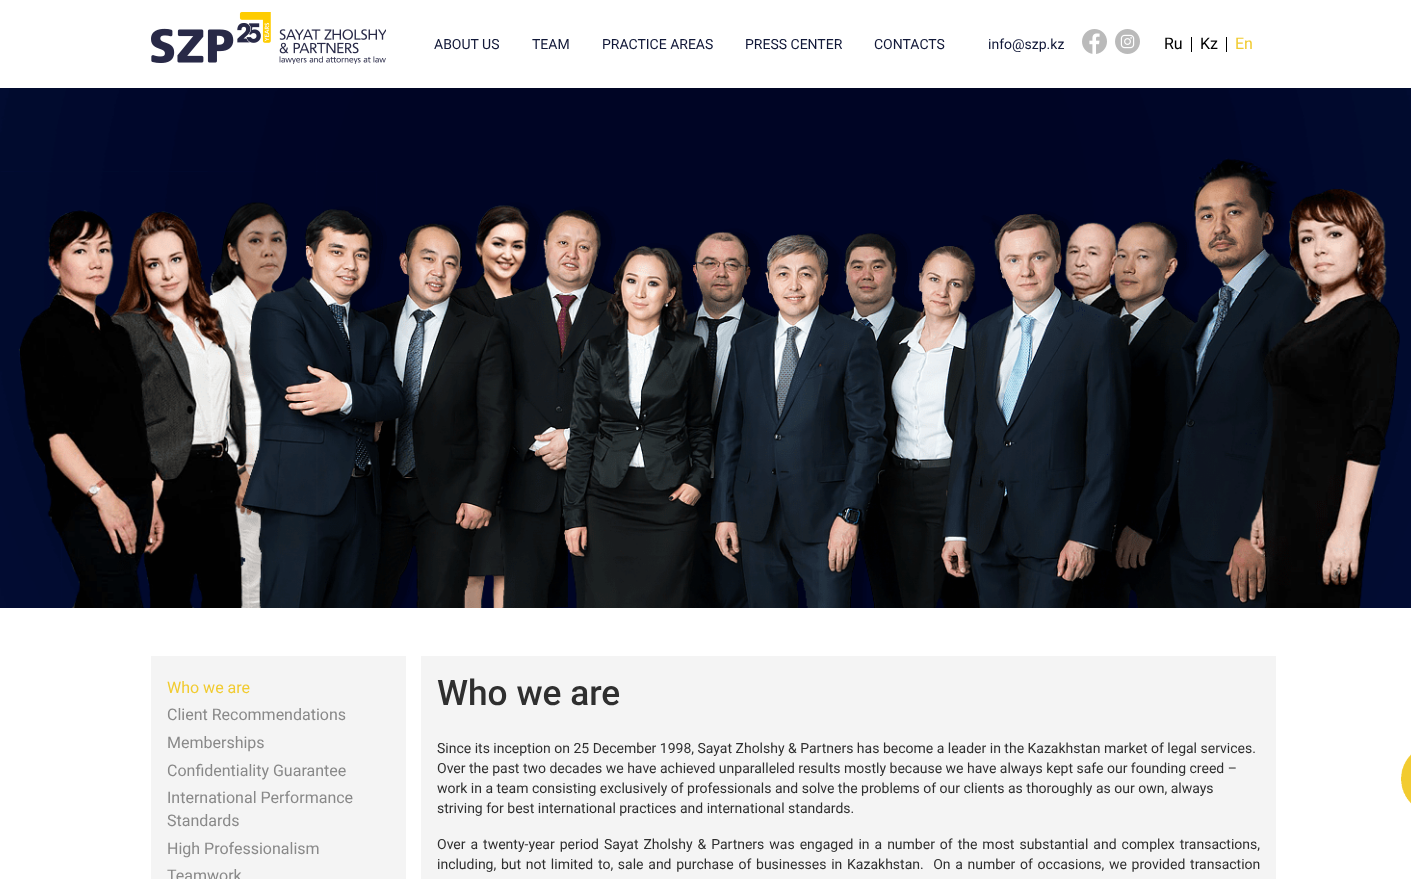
<?xml version="1.0" encoding="UTF-8"?>
<svg xmlns="http://www.w3.org/2000/svg" width="1411" height="879">
    <rect width="100%" height="100%" fill="#FFFFFF"/>
    <image x="151" y="12" width="235" height="52" href="img_01.png"/>
    <text x="434" y="49" font-family="Roboto" font-size="14" fill="#111838">ABOUT US</text>
    <text x="532" y="49" font-family="Roboto" font-size="14" fill="#111838">TEAM</text>
    <text x="602" y="49" font-family="Roboto" font-size="14" fill="#111838">PRACTICE AREAS</text>
    <text x="745" y="49" font-family="Roboto" font-size="14" fill="#111838">PRESS CENTER</text>
    <text x="874" y="49" font-family="Roboto" font-size="14" fill="#111838">CONTACTS</text>
    <text x="988" y="49" font-family="Roboto" font-size="14" fill="#111838">info@szp.kz</text>
    <image x="1082" y="29" width="25" height="25" href="img_02.png"/>
    <image x="1115" y="29" width="25" height="25" href="img_03.png"/>
    <text x="1164" y="49" font-family="Roboto" font-size="16" fill="#000000">Ru</text>
    <rect x="1191" y="37" width="1" height="15" fill="#000000"/>
    <text x="1200" y="49" font-family="Roboto" font-size="16" fill="#000000">Kz</text>
    <rect x="1226" y="37" width="1" height="15" fill="#000000"/>
    <text x="1235" y="49" font-family="Roboto" font-size="16" fill="#F1CB30">En</text>
    <image x="0" y="88" width="1411" height="520" href="img_04.png"/>
    <rect x="151" y="656" width="255" height="223" fill="#F4F4F4"/>
    <text x="167" y="693" font-family="Roboto" font-size="16" fill="#F1CB30">Who we are</text>
    <text font-family="Roboto" font-size="16" fill="#898989">
        <tspan x="167" y="720">Client Recommendations</tspan>
        <tspan x="167" y="748">Memberships</tspan>
        <tspan x="167" y="776">Confidentiality Guarantee</tspan>
        <tspan x="167" y="803">International Performance</tspan>
        <tspan x="167" y="826">Standards</tspan>
        <tspan x="167" y="854">High Professionalism</tspan>
        <tspan x="167" y="881">Teamwork</tspan>
    </text>
    <rect x="421" y="656" width="855" height="223" fill="#F4F4F4"/>
    <text x="437" y="705" font-family="Roboto" font-size="35.25" font-weight="500" fill="#2F2F2F">Who we are</text>
    <text font-family="Roboto" font-size="14" fill="#2F2F2F">
        <tspan x="437" y="753">Since its inception on 25 December 1998, Sayat Zholshy &amp; Partners has become a leader in the Kazakhstan market of legal services.</tspan>
        <tspan x="437" y="773">Over the past two decades we have achieved unparalleled results mostly because we have always kept safe our founding creed –</tspan>
        <tspan x="437" y="793">work in a team consisting exclusively of professionals and solve the problems of our clients as thoroughly as our own, always</tspan>
        <tspan x="437" y="813">striving for best international practices and international standards.</tspan>
    </text>
    <text font-family="Roboto" font-size="14" fill="#2F2F2F" xml:space="preserve"><tspan x="437" y="849" word-spacing="1.5">Over a twenty-year period Sayat Zholshy &amp; Partners was engaged in a number of the most substantial and complex transactions,</tspan><tspan x="437" y="869" word-spacing="1.25">including, but not limited to, sale and purchase of businesses in Kazakhstan.  On a number of occasions, we provided transaction</tspan></text>
    <image x="1401" y="754" width="10" height="50" href="img_05.png"/>
</svg>
